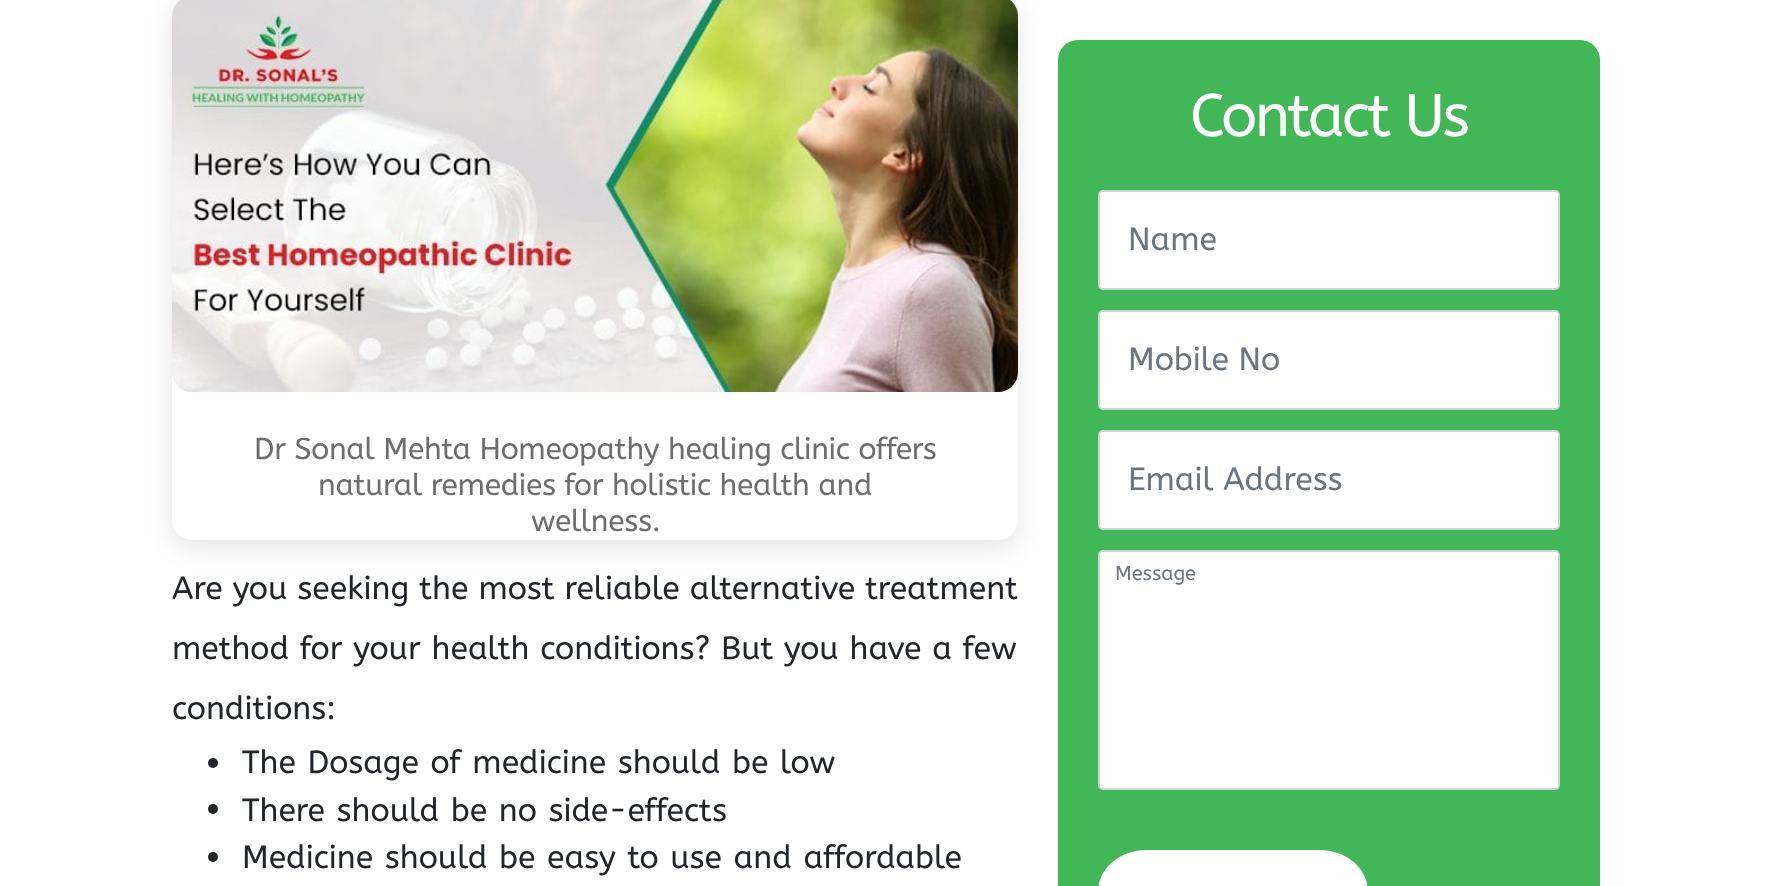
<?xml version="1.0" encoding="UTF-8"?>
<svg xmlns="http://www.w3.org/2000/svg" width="1772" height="886">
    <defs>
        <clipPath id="clip1"><path d="M 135 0 H 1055 V 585 H 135 Z M 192 -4 H 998 C 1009 -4 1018 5 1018 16 V 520 C 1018 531 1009 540 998 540 H 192 C 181 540 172 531 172 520 V 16 C 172 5 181 -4 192 -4 Z" clip-rule="evenodd"/></clipPath>
        <filter id="blur1" x="-50%" y="-200%" width="200%" height="500%"><feGaussianBlur stdDeviation="12"/></filter>
    </defs>
    <rect width="100%" height="100%" fill="#FFFFFF"/>
    <rect x="1058" y="40" width="542" height="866" rx="20" fill="#41B757"/>
    <text x="1190" y="136" font-family="ABeeZee" font-size="60" letter-spacing="-2.5" fill="#FFFFFF">Contact Us</text>
    <rect x="1099" y="191" width="460" height="98" rx="4" fill="#FFFFFF" stroke="#CED4DA" stroke-width="2"/>
    <text x="1128" y="250" font-family="ABeeZee" font-size="32" fill="#6C757D">Name</text>
    <rect x="1099" y="311" width="460" height="98" rx="4" fill="#FFFFFF" stroke="#CED4DA" stroke-width="2"/>
    <text x="1128" y="370" font-family="ABeeZee" font-size="32" fill="#6C757D">Mobile No</text>
    <rect x="1099" y="431" width="460" height="98" rx="4" fill="#FFFFFF" stroke="#CED4DA" stroke-width="2"/>
    <text x="1128" y="490" font-family="ABeeZee" font-size="32" fill="#6C757D">Email Address</text>
    <rect x="1099" y="551" width="460" height="238" rx="4" fill="#FFFFFF" stroke="#CED4DA" stroke-width="2"/>
    <text x="1115" y="580" font-family="ABeeZee" font-size="20" fill="#6C757D">Message</text>
    <rect x="1098" y="850" width="270" height="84" rx="48" fill="#FFFFFF"/>
    <g clip-path="url(#clip1)">
        <rect x="172" y="4" width="846" height="544" rx="20" fill="#000000" fill-opacity="0.1" filter="url(#blur1)"/>
    </g>
    <image x="172" y="0" width="846" height="392" href="img_01.png"/>
    <text x="254" y="459" font-family="ABeeZee" font-size="30" letter-spacing="-0.3" fill="#6D6D6D">Dr Sonal Mehta Homeopathy healing clinic offers</text>
    <text x="318" y="495" font-family="ABeeZee" font-size="30" letter-spacing="-0.3" fill="#6D6D6D">natural remedies for holistic health and</text>
    <text x="531" y="531" font-family="ABeeZee" font-size="30" letter-spacing="-0.3" fill="#6D6D6D">wellness.</text>
    <text font-family="ABeeZee" font-size="32" fill="#212529">
        <tspan x="172" y="599" word-spacing="0.5">Are you seeking the most reliable alternative treatment</tspan>
        <tspan x="172" y="659" word-spacing="1.25">method for your health conditions? But you have a few</tspan>
        <tspan x="172" y="719">conditions:</tspan>
    </text>
    <circle cx="213" cy="763" r="5" fill="#212529"/>
    <text x="242" y="773" word-spacing="2" font-family="ABeeZee" font-size="32" fill="#212529">The Dosage of medicine should be low</text>
    <circle cx="213" cy="809" r="5" fill="#212529"/>
    <text x="242" y="821" word-spacing="2" font-family="ABeeZee" font-size="32" fill="#212529">There should be no side-effects</text>
    <circle cx="213" cy="857" r="5" fill="#212529"/>
    <text x="242" y="868" word-spacing="2" font-family="ABeeZee" font-size="32" fill="#212529">Medicine should be easy to use and affordable</text>
</svg>
